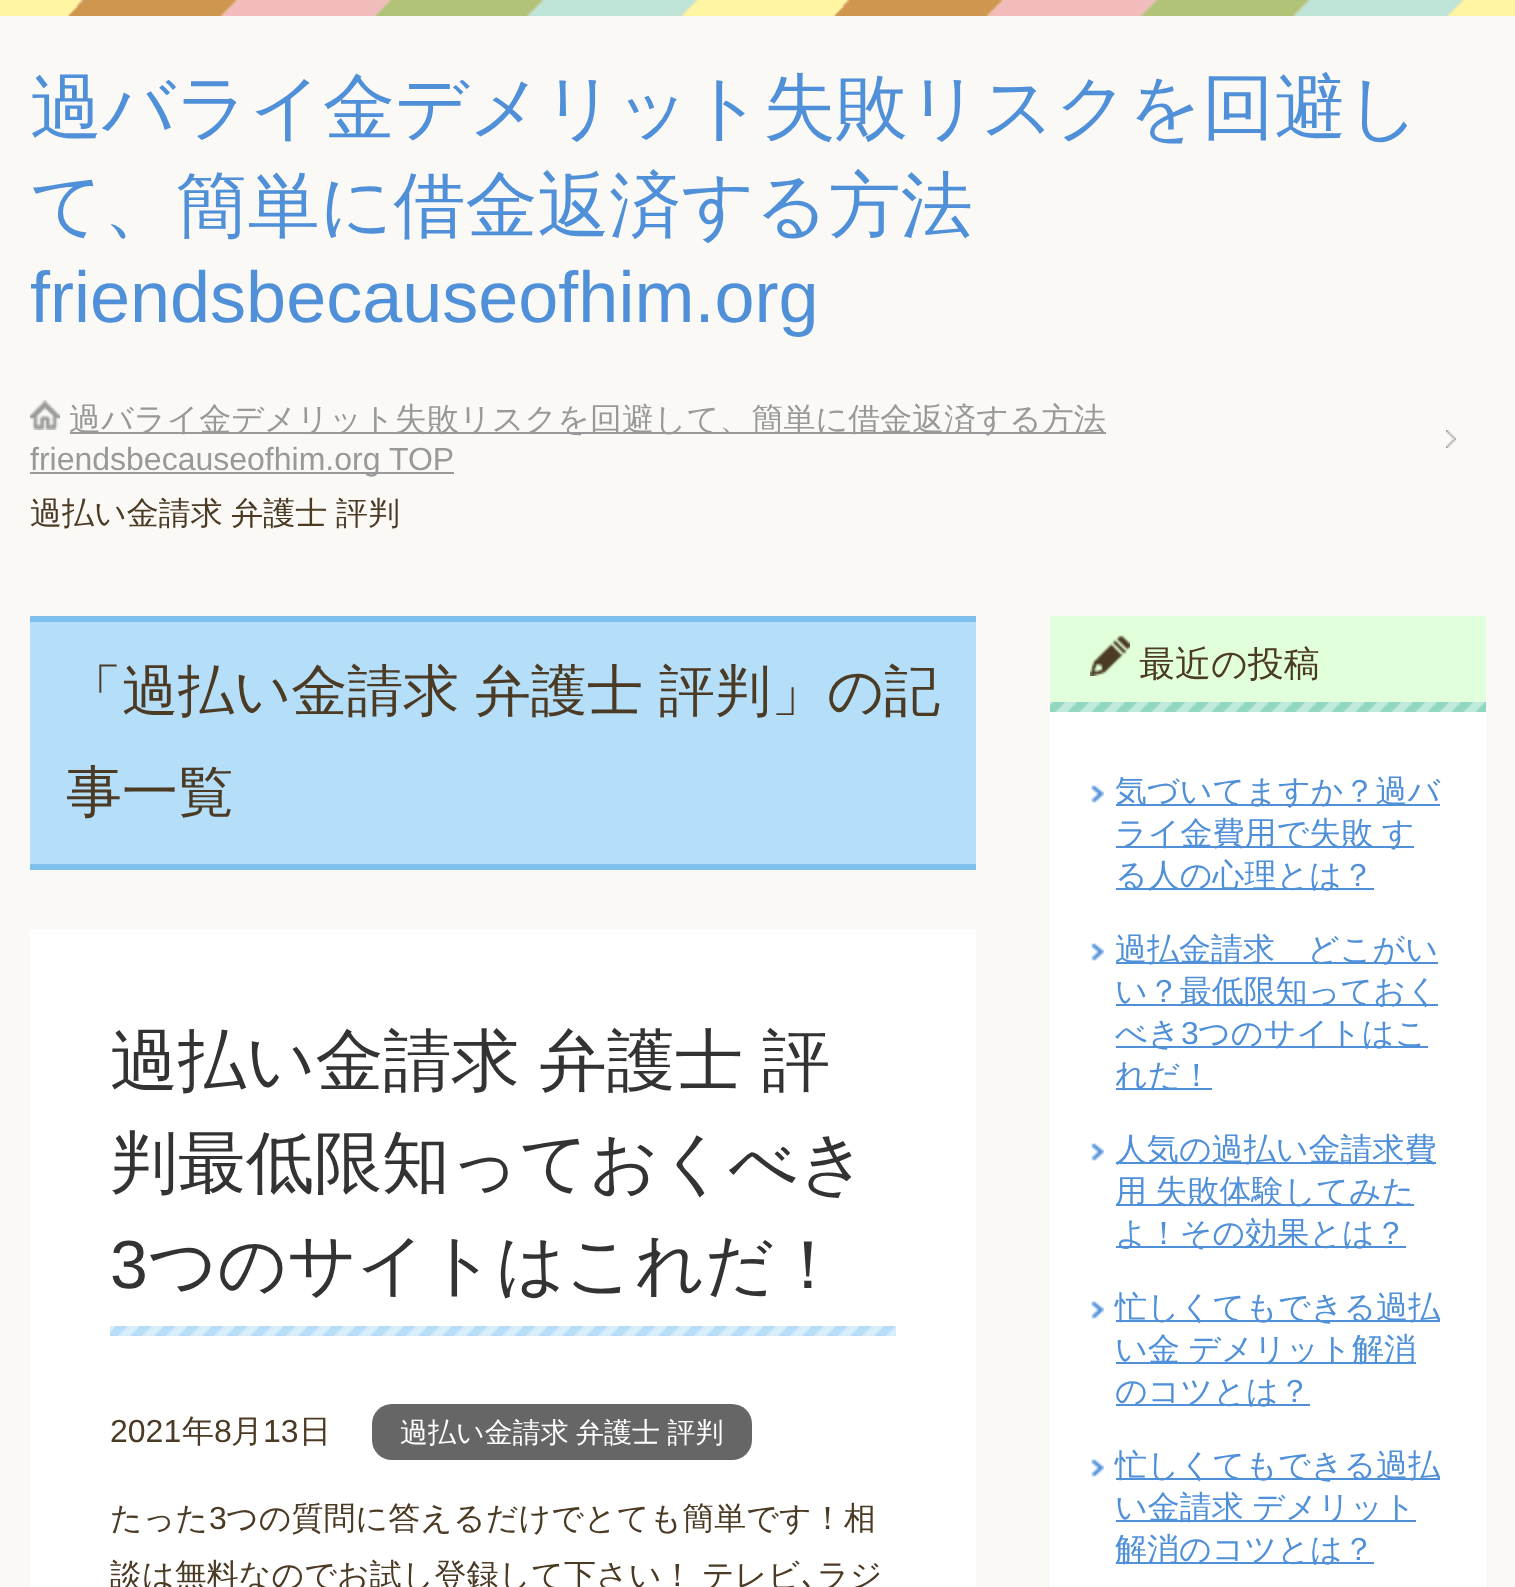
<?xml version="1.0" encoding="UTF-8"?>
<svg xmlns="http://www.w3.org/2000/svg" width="1515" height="1587">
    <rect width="100%" height="100%" fill="#FAF9F5"/>
    <image x="0" y="0" width="1515" height="16" href="img_01.png"/>
    <text font-family="WenQuanYi Zen Hei" font-size="72" font-weight="500" fill="#5090D9">
        <tspan x="30" y="132">過バライ金デメリット失敗リスクを回避し</tspan>
        <tspan x="30" y="230">て、簡単に借金返済する方法</tspan>
    </text>
    <text x="30" y="322" font-family="Liberation Sans" font-size="72" fill="#5090D9">friendsbecauseofhim.org</text>
    <image x="1446" y="430" width="10" height="18" href="img_02.png"/>
    <image x="30" y="400" width="30" height="30" href="img_03.png"/>
    <rect x="70" y="432" width="1036" height="2" fill="#999999"/>
    <text x="69" y="430" font-family="WenQuanYi Zen Hei" font-size="32" font-weight="500" fill="#999999">過バライ金デメリット失敗リスクを回避して、簡単に借金返済する方法</text>
    <rect x="30" y="472" width="424" height="2" fill="#999999"/>
    <text x="30" y="470" font-family="Liberation Sans" font-size="32" fill="#999999">friendsbecauseofhim.org</text>
    <text x="389" y="470" font-family="Liberation Sans" font-size="32" fill="#999999">TOP</text>
    <text x="30" y="524" word-spacing="-1" font-family="WenQuanYi Zen Hei" font-size="32" font-weight="500" fill="#4B3A24">過払い金請求 弁護士 評判</text>
    <rect x="30" y="622" width="946" height="242" fill="#B5DEF8"/>
    <rect x="30" y="616" width="946" height="6" fill="#7EC0EE"/>
    <rect x="30" y="864" width="946" height="6" fill="#7EC0EE"/>
    <text font-family="WenQuanYi Zen Hei" font-size="56" font-weight="500" fill="#4B3A24">
        <tspan x="66" y="710" word-spacing="-1">「過払い金請求 弁護士 評判」の記</tspan>
        <tspan x="66" y="811">事一覧</tspan>
    </text>
    <rect x="30" y="930" width="946" height="657" fill="#FFFFFF"/>
    <image x="110" y="1326" width="786" height="10" href="img_04.png"/>
    <text font-family="WenQuanYi Zen Hei" font-size="68" font-weight="500" fill="#333333">
        <tspan x="110" y="1084" word-spacing="-1">過払い金請求 弁護士 評</tspan>
        <tspan x="110" y="1186">判最低限知っておくべき</tspan>
    </text>
    <text x="110" y="1288" font-family="Liberation Sans" font-size="68" fill="#333333">3</text>
    <text x="148" y="1288" font-family="WenQuanYi Zen Hei" font-size="68" font-weight="500" fill="#333333">つのサイトはこれだ！</text>
    <text x="110" y="1442" font-family="Liberation Sans" font-size="32" fill="#4B3A24">2021</text>
    <text x="182" y="1442" font-family="WenQuanYi Zen Hei" font-size="32" font-weight="500" fill="#4B3A24">年</text>
    <text x="214" y="1442" font-family="Liberation Sans" font-size="32" fill="#4B3A24">8</text>
    <text x="231" y="1442" font-family="WenQuanYi Zen Hei" font-size="32" font-weight="500" fill="#4B3A24">月</text>
    <text x="263" y="1442" font-family="Liberation Sans" font-size="32" fill="#4B3A24">13</text>
    <text x="299" y="1442" font-family="WenQuanYi Zen Hei" font-size="32" font-weight="500" fill="#4B3A24">日</text>
    <rect x="372" y="1404" width="380" height="56" rx="20" fill="#666666"/>
    <text x="400" y="1442" word-spacing="-1" font-family="WenQuanYi Zen Hei" font-size="28" font-weight="500" fill="#FFFFFF">過払い金請求 弁護士 評判</text>
    <text x="110" y="1529" font-family="WenQuanYi Zen Hei" font-size="32" font-weight="500" fill="#4B3A24">たった</text>
    <text x="209" y="1529" font-family="Liberation Sans" font-size="32" fill="#4B3A24">3</text>
    <text x="226" y="1529" font-family="WenQuanYi Zen Hei" font-size="32" font-weight="500" fill="#4B3A24">つの質問に答えるだけでとても簡単です！相</text>
    <text x="110" y="1586" word-spacing="-1" font-family="WenQuanYi Zen Hei" font-size="32" font-weight="500" fill="#4B3A24">談は無料なのでお試し登録して下さい！ テレビ</text>
    <text x="801" y="1586" font-family="IPAPGothic" font-size="32" fill="#4B3A24">､</text>
    <text x="817" y="1586" font-family="WenQuanYi Zen Hei" font-size="32" font-weight="500" fill="#4B3A24">ラジ</text>
    <rect x="1050" y="712" width="436" height="875" fill="#FFFFFF"/>
    <rect x="1050" y="616" width="436" height="86" fill="#E1FFDA"/>
    <image x="1050" y="702" width="436" height="10" href="img_05.png"/>
    <image x="1090" y="635" width="40" height="41" href="img_06.png"/>
    <text x="1139" y="676" font-family="WenQuanYi Zen Hei" font-size="36" font-weight="500" fill="#4B3A24">最近の投稿</text>
    <image x="1091" y="785" width="13" height="18" href="img_07.png"/>
    <rect x="1116" y="804" width="324" height="2" fill="#5090D9"/>
    <text x="1115" y="802" font-family="WenQuanYi Zen Hei" font-size="32" font-weight="500" fill="#5090D9">気づいてますか？過バ</text>
    <rect x="1116" y="846" width="298" height="2" fill="#5090D9"/>
    <text x="1115" y="844" word-spacing="-1" font-family="WenQuanYi Zen Hei" font-size="32" font-weight="500" fill="#5090D9">ライ金費用で失敗 す</text>
    <rect x="1116" y="888" width="258" height="2" fill="#5090D9"/>
    <text x="1115" y="886" font-family="WenQuanYi Zen Hei" font-size="32" font-weight="500" fill="#5090D9">る人の心理とは？</text>
    <image x="1091" y="943" width="13" height="18" href="img_07.png"/>
    <rect x="1116" y="962" width="322" height="2" fill="#5090D9"/>
    <text x="1115" y="960" font-family="WenQuanYi Zen Hei" font-size="32" font-weight="500" fill="#5090D9">過払金請求　どこがい</text>
    <rect x="1116" y="1004" width="322" height="2" fill="#5090D9"/>
    <text x="1115" y="1002" font-family="WenQuanYi Zen Hei" font-size="32" font-weight="500" fill="#5090D9">い？最低限知っておく</text>
    <rect x="1116" y="1046" width="312" height="2" fill="#5090D9"/>
    <text x="1115" y="1044" font-family="WenQuanYi Zen Hei" font-size="32" font-weight="500" fill="#5090D9">べき</text>
    <text x="1181" y="1044" font-family="Liberation Sans" font-size="32" fill="#5090D9">3</text>
    <text x="1198" y="1044" font-family="WenQuanYi Zen Hei" font-size="32" font-weight="500" fill="#5090D9">つのサイトはこ</text>
    <rect x="1116" y="1088" width="96" height="2" fill="#5090D9"/>
    <text x="1115" y="1086" font-family="WenQuanYi Zen Hei" font-size="32" font-weight="500" fill="#5090D9">れだ！</text>
    <image x="1091" y="1143" width="13" height="18" href="img_07.png"/>
    <rect x="1116" y="1162" width="320" height="2" fill="#5090D9"/>
    <text x="1115" y="1160" font-family="WenQuanYi Zen Hei" font-size="32" font-weight="500" fill="#5090D9">人気の過払い金請求費</text>
    <rect x="1116" y="1204" width="298" height="2" fill="#5090D9"/>
    <text x="1115" y="1202" word-spacing="-1" font-family="WenQuanYi Zen Hei" font-size="32" font-weight="500" fill="#5090D9">用 失敗体験してみた</text>
    <rect x="1116" y="1246" width="290" height="2" fill="#5090D9"/>
    <text x="1115" y="1244" font-family="WenQuanYi Zen Hei" font-size="32" font-weight="500" fill="#5090D9">よ！その効果とは？</text>
    <image x="1091" y="1301" width="13" height="18" href="img_07.png"/>
    <rect x="1116" y="1320" width="324" height="2" fill="#5090D9"/>
    <text x="1115" y="1318" font-family="WenQuanYi Zen Hei" font-size="32" font-weight="500" fill="#5090D9">忙しくてもできる過払</text>
    <rect x="1116" y="1362" width="300" height="2" fill="#5090D9"/>
    <text x="1115" y="1360" word-spacing="-1" font-family="WenQuanYi Zen Hei" font-size="32" font-weight="500" fill="#5090D9">い金 デメリット解消</text>
    <rect x="1116" y="1404" width="194" height="2" fill="#5090D9"/>
    <text x="1115" y="1402" font-family="WenQuanYi Zen Hei" font-size="32" font-weight="500" fill="#5090D9">のコツとは？</text>
    <image x="1091" y="1459" width="13" height="18" href="img_07.png"/>
    <rect x="1116" y="1478" width="324" height="2" fill="#5090D9"/>
    <text x="1115" y="1476" font-family="WenQuanYi Zen Hei" font-size="32" font-weight="500" fill="#5090D9">忙しくてもできる過払</text>
    <rect x="1116" y="1520" width="300" height="2" fill="#5090D9"/>
    <text x="1115" y="1518" word-spacing="-1" font-family="WenQuanYi Zen Hei" font-size="32" font-weight="500" fill="#5090D9">い金請求 デメリット</text>
    <rect x="1116" y="1562" width="258" height="2" fill="#5090D9"/>
    <text x="1115" y="1560" font-family="WenQuanYi Zen Hei" font-size="32" font-weight="500" fill="#5090D9">解消のコツとは？</text>
</svg>
